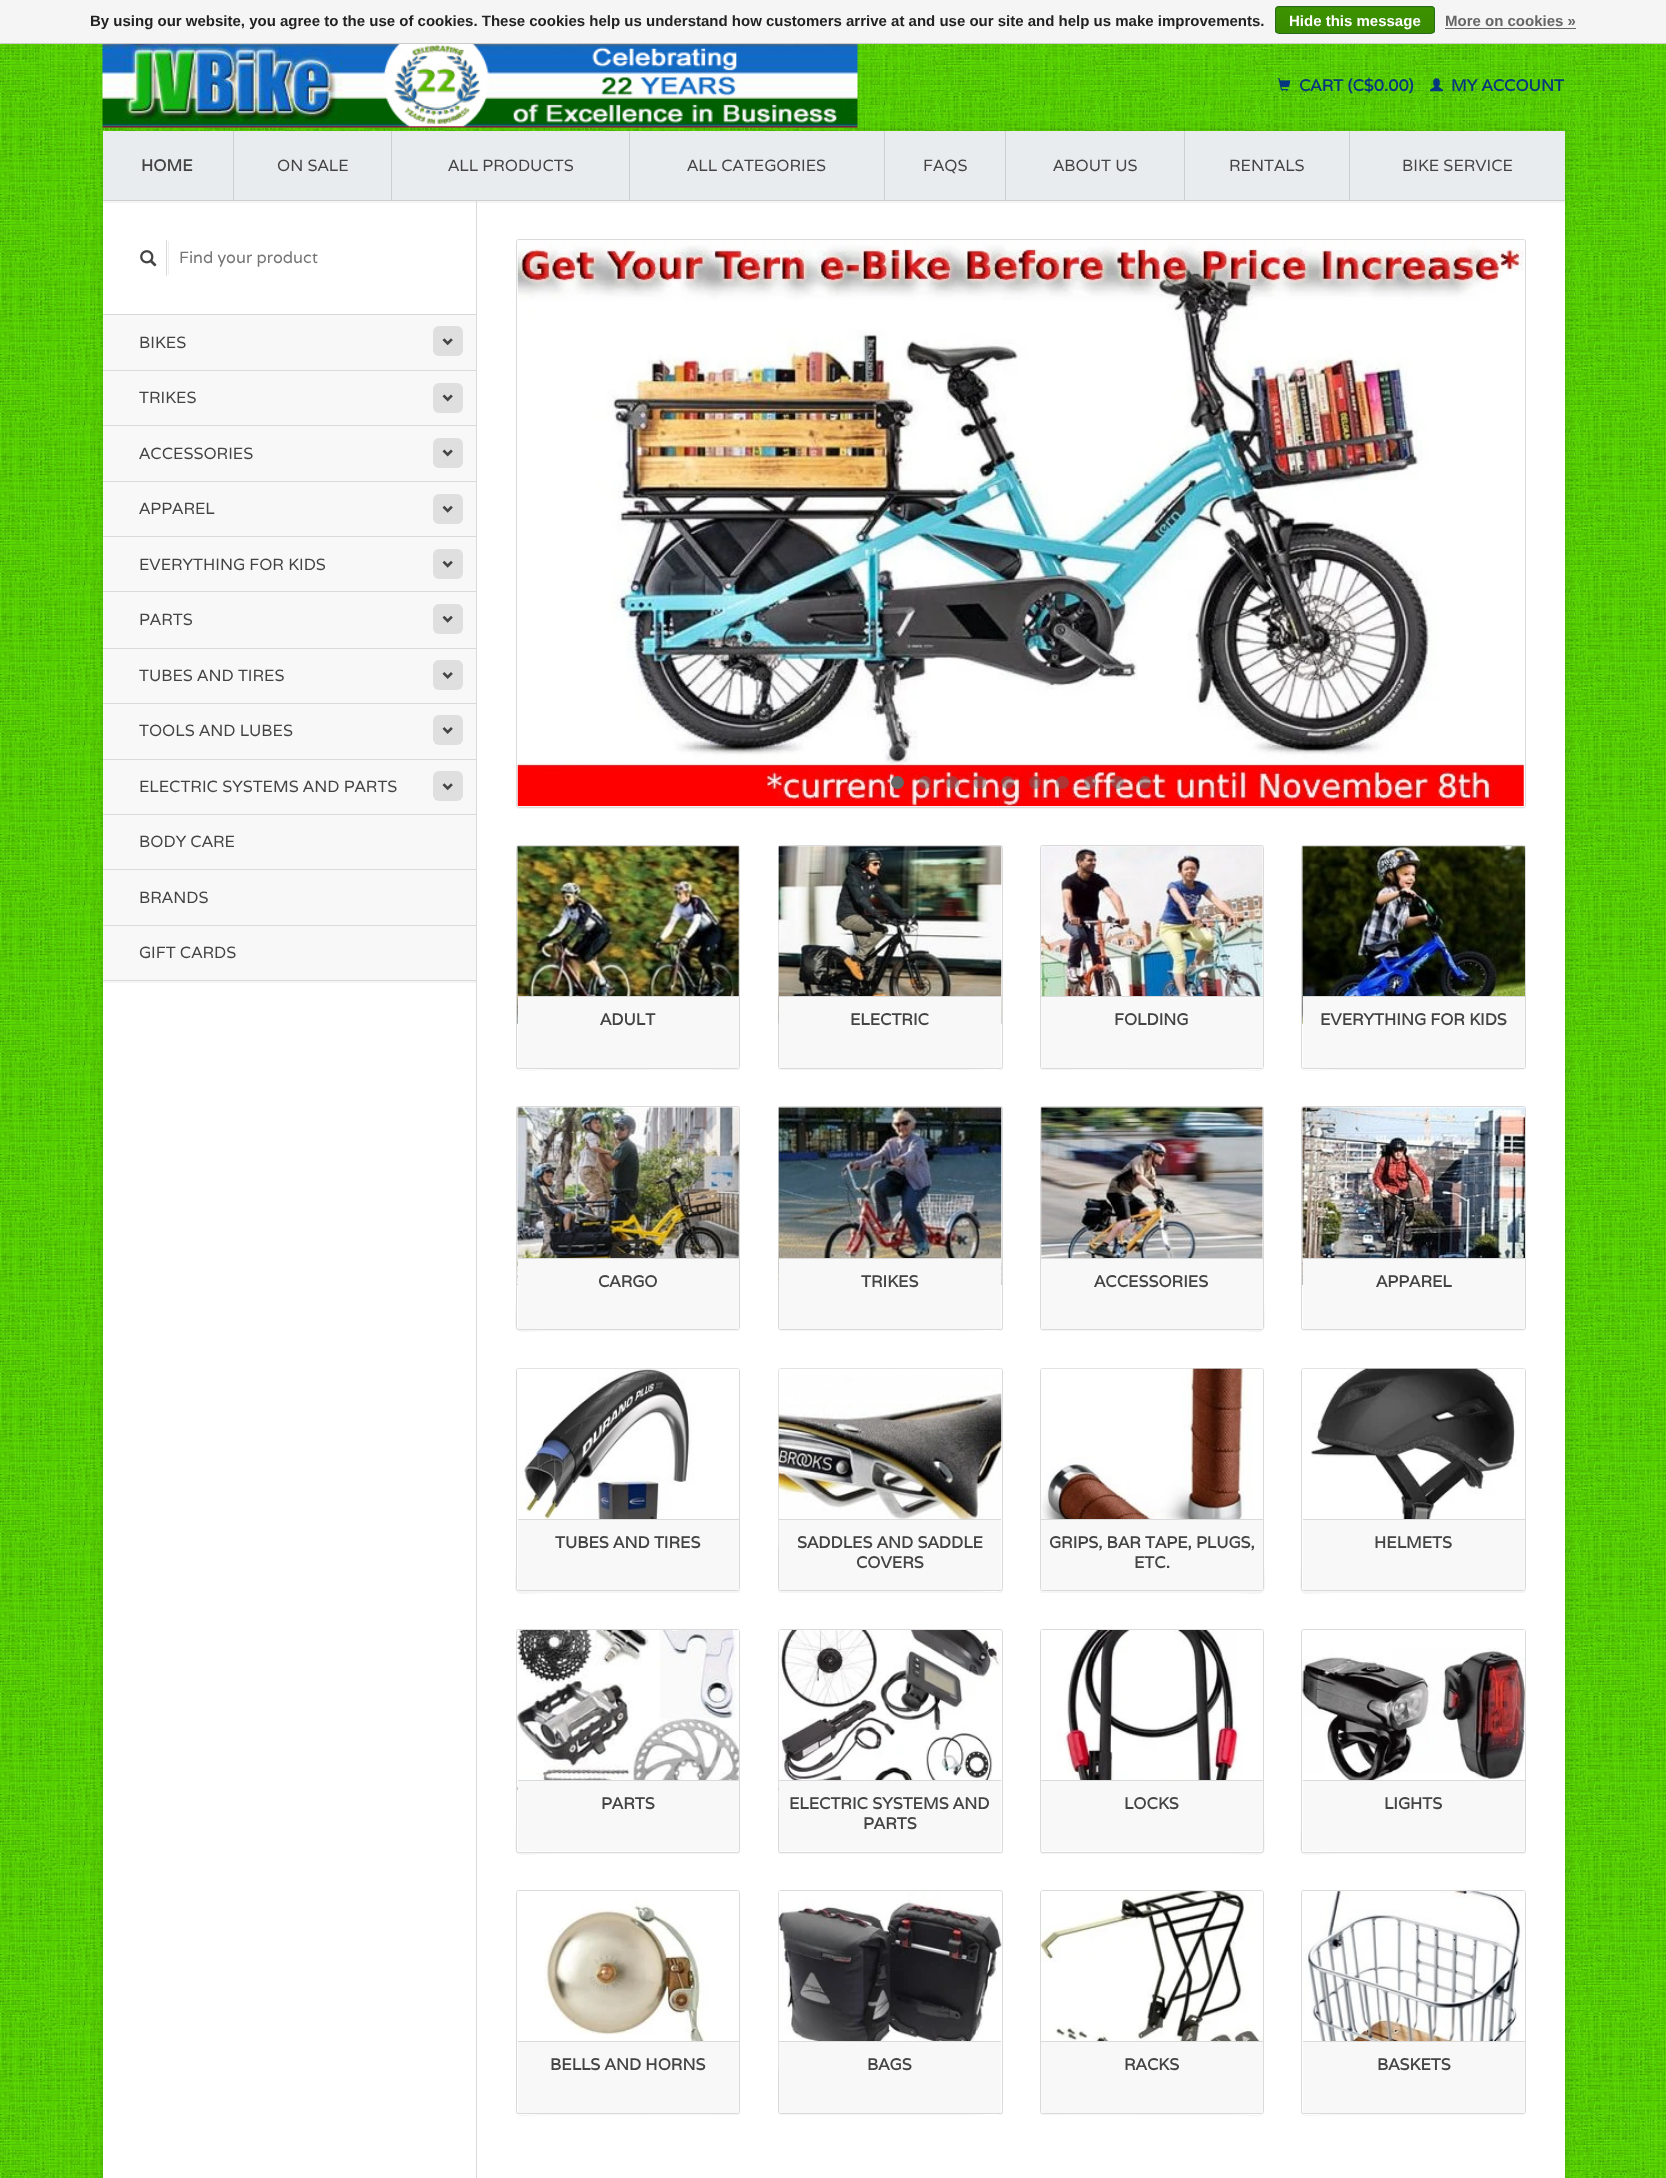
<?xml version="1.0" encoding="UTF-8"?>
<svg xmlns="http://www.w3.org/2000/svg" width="1666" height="2178">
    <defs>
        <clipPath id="clip1"><rect x="1275" y="6" width="160" height="28" rx="4"/></clipPath>
        <linearGradient id="g1" gradientUnits="userSpaceOnUse" x1="1355" y1="-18" x2="1355" y2="7.5"><stop offset="0" stop-color="#3C9300"/><stop offset="1" stop-color="#398A00"/></linearGradient>
        <linearGradient id="g2" gradientUnits="userSpaceOnUse" x1="1355" y1="7.5" x2="1355" y2="33"><stop offset="0" stop-color="#3C9300"/><stop offset="1" stop-color="#398A00"/></linearGradient>
        <filter id="blur1" x="-50%" y="-200%" width="200%" height="500%"><feGaussianBlur stdDeviation="4.5"/></filter>
        <clipPath id="clip2"><path d="M 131 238 H 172 V 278 H 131 Z M 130 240 H 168 V 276 H 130 Z" clip-rule="evenodd"/></clipPath>
        <filter id="blur2" x="-50%" y="-200%" width="200%" height="500%"><feGaussianBlur stdDeviation="0.5"/></filter>
    </defs>
    <rect width="100%" height="100%" fill="#FFFFFF"/>
    <image x="0" y="44" width="1666" height="2134" href="img_01.png"/>
    <rect x="0" y="0" width="1666" height="43" fill="#F5F5F5"/>
    <rect x="0" y="43" width="1666" height="1" fill="#CCCCCC"/>
    <text x="90" y="26" font-family="Liberation Sans" font-size="15" font-weight="700" fill="#222222">By using our website, you agree to the use of cookies. These cookies help us understand how customers arrive at and use our site and help us make improvements.</text>
    <g clip-path="url(#clip1)">
        <rect x="1275" y="6" width="160" height="2" fill="url(#g1)"/>
        <rect x="1275" y="8" width="160" height="25" fill="url(#g2)"/>
    </g>
    <rect x="1275.5" y="6.5" width="159" height="27" rx="3.5" fill="none" stroke="#29691D"/>
    <text x="1289" y="26" font-family="Liberation Sans" font-size="15" font-weight="700" fill="#FFFFFF">Hide this message</text>
    <text x="1445" y="26" font-family="Liberation Sans" font-size="15" font-weight="700" fill="#666666">More on cookies »</text>
    <rect x="1445" y="28" width="131" height="1" fill="#666666"/>
    <rect x="103" y="131" width="1462" height="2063" rx="2.5" fill="#000000" fill-opacity="0.13" filter="url(#blur1)"/>
    <image x="102" y="44" width="756" height="84" href="img_02.png"/>
    <image x="1277" y="78" width="14" height="14" href="img_03.png"/>
    <text x="1299" y="91" font-family="Varela" font-size="16.25" font-weight="700" fill="#06367F">CART (C$0.00)</text>
    <image x="1430" y="78" width="13" height="14" href="img_04.png"/>
    <text x="1451" y="91" font-family="Varela" font-size="16.25" font-weight="700" fill="#06367F">MY ACCOUNT</text>
    <rect x="103" y="203" width="1462" height="1975" fill="#FFFFFF"/>
    <rect x="103" y="201" width="1462" height="2" fill="#F5F5F5"/>
    <rect x="103" y="200" width="1462" height="1" fill="#CDCFD1"/>
    <rect x="103" y="131" width="130" height="69" fill="#E9ECEE"/>
    <rect x="233" y="131" width="1" height="69" fill="#CDCFD1"/>
    <text x="141" y="171" font-family="Varela" font-size="16.25" font-weight="700" fill="#444444">HOME</text>
    <rect x="234" y="131" width="395" height="69" fill="#E9ECEE"/>
    <rect x="391" y="131" width="1" height="69" fill="#CDCFD1"/>
    <text x="277" y="171" font-family="Varela" font-size="16.25" fill="#444444">ON SALE</text>
    <rect x="629" y="131" width="1" height="69" fill="#CDCFD1"/>
    <text x="448" y="171" font-family="Varela" font-size="16.25" fill="#444444">ALL PRODUCTS</text>
    <rect x="630" y="131" width="254" height="69" fill="#E9ECEE"/>
    <rect x="884" y="131" width="1" height="69" fill="#CDCFD1"/>
    <text x="687" y="171" font-family="Varela" font-size="16.25" fill="#444444">ALL CATEGORIES</text>
    <rect x="885" y="131" width="120" height="69" fill="#E9ECEE"/>
    <rect x="1005" y="131" width="1" height="69" fill="#CDCFD1"/>
    <text x="923" y="171" font-family="Varela" font-size="16.25" fill="#444444">FAQS</text>
    <rect x="1006" y="131" width="178" height="69" fill="#E9ECEE"/>
    <rect x="1184" y="131" width="1" height="69" fill="#CDCFD1"/>
    <text x="1053" y="171" font-family="Varela" font-size="16.25" fill="#444444">ABOUT US</text>
    <rect x="1185" y="131" width="164" height="69" fill="#E9ECEE"/>
    <rect x="1349" y="131" width="1" height="69" fill="#CDCFD1"/>
    <text x="1229" y="171" font-family="Varela" font-size="16.25" fill="#444444">RENTALS</text>
    <rect x="1350" y="131" width="215" height="69" fill="#E9ECEE"/>
    <text x="1402" y="171" font-family="Varela" font-size="16.25" fill="#444444">BIKE SERVICE</text>
    <rect x="476" y="201" width="1" height="1977" fill="#DADADA"/>
    <g clip-path="url(#clip2)">
        <rect x="134" y="241" width="35" height="34" fill="#000000" fill-opacity="0.06" filter="url(#blur2)"/>
    </g>
    <rect x="166" y="240" width="1" height="36" fill="#DADADA"/>
    <image x="140" y="250" width="17" height="17" href="img_05.png"/>
    <text x="179" y="263" font-family="Varela" font-size="16.25" fill="#757575">Find your product</text>
    <rect x="103" y="315" width="373" height="55" fill="#F8F8F8"/>
    <rect x="103" y="314" width="373" height="1" fill="#DADADA"/>
    <text x="139" y="348" font-family="Varela" font-size="16.25" fill="#444444">BIKES</text>
    <rect x="433" y="326" width="30" height="30" rx="6" fill="#DFDFDF"/>
    <image x="442" y="338" width="11" height="8" href="img_06.png"/>
    <rect x="103" y="371" width="373" height="54" fill="#F8F8F8"/>
    <rect x="103" y="370" width="373" height="1" fill="#DADADA"/>
    <text x="139" y="403" font-family="Varela" font-size="16.25" fill="#444444">TRIKES</text>
    <rect x="433" y="383" width="30" height="30" rx="6" fill="#DFDFDF"/>
    <image x="442" y="394" width="11" height="8" href="img_07.png"/>
    <rect x="103" y="426" width="373" height="55" fill="#F8F8F8"/>
    <rect x="103" y="425" width="373" height="1" fill="#DADADA"/>
    <text x="139" y="459" font-family="Varela" font-size="16.25" fill="#444444">ACCESSORIES</text>
    <rect x="433" y="438" width="30" height="30" rx="6" fill="#DFDFDF"/>
    <image x="442" y="449" width="11" height="8" href="img_07.png"/>
    <rect x="103" y="482" width="373" height="54" fill="#F8F8F8"/>
    <rect x="103" y="481" width="373" height="1" fill="#DADADA"/>
    <text x="139" y="514" font-family="Varela" font-size="16.25" fill="#444444">APPAREL</text>
    <rect x="433" y="494" width="30" height="30" rx="6" fill="#DFDFDF"/>
    <image x="442" y="505" width="11" height="8" href="img_08.png"/>
    <rect x="103" y="537" width="373" height="54" fill="#F8F8F8"/>
    <rect x="103" y="536" width="373" height="1" fill="#DADADA"/>
    <text x="139" y="570" font-family="Varela" font-size="16.25" fill="#444444">EVERYTHING FOR KIDS</text>
    <rect x="433" y="549" width="30" height="30" rx="6" fill="#DFDFDF"/>
    <image x="442" y="560" width="11" height="8" href="img_08.png"/>
    <rect x="103" y="592" width="373" height="56" fill="#F8F8F8"/>
    <rect x="103" y="591" width="373" height="1" fill="#DADADA"/>
    <text x="139" y="625" font-family="Varela" font-size="16.25" fill="#444444">PARTS</text>
    <rect x="433" y="604" width="30" height="30" rx="6" fill="#DFDFDF"/>
    <image x="442" y="615" width="11" height="8" href="img_08.png"/>
    <rect x="103" y="649" width="373" height="54" fill="#F8F8F8"/>
    <rect x="103" y="648" width="373" height="1" fill="#DADADA"/>
    <text x="139" y="681" font-family="Varela" font-size="16.25" fill="#444444">TUBES AND TIRES</text>
    <rect x="433" y="660" width="30" height="30" rx="6" fill="#DFDFDF"/>
    <image x="442" y="672" width="11" height="7" href="img_09.png"/>
    <rect x="103" y="704" width="373" height="55" fill="#F8F8F8"/>
    <rect x="103" y="703" width="373" height="1" fill="#DADADA"/>
    <text x="139" y="736" font-family="Varela" font-size="16.25" fill="#444444">TOOLS AND LUBES</text>
    <rect x="433" y="715" width="30" height="30" rx="6" fill="#DFDFDF"/>
    <image x="442" y="727" width="11" height="7" href="img_09.png"/>
    <rect x="103" y="760" width="373" height="54" fill="#F8F8F8"/>
    <rect x="103" y="759" width="373" height="1" fill="#DADADA"/>
    <text x="139" y="792" font-family="Varela" font-size="16.25" fill="#444444">ELECTRIC SYSTEMS AND PARTS</text>
    <rect x="433" y="771" width="30" height="30" rx="6" fill="#DFDFDF"/>
    <image x="442" y="783" width="11" height="8" href="img_06.png"/>
    <rect x="103" y="815" width="373" height="54" fill="#F8F8F8"/>
    <rect x="103" y="814" width="373" height="1" fill="#DADADA"/>
    <text x="139" y="847" font-family="Varela" font-size="16.25" fill="#444444">BODY CARE</text>
    <rect x="103" y="870" width="373" height="55" fill="#F8F8F8"/>
    <rect x="103" y="869" width="373" height="1" fill="#DADADA"/>
    <text x="139" y="903" font-family="Varela" font-size="16.25" fill="#444444">BRANDS</text>
    <rect x="103" y="981" width="373" height="2" fill="#F5F5F5"/>
    <rect x="103" y="926" width="373" height="54" fill="#F8F8F8"/>
    <rect x="103" y="925" width="373" height="1" fill="#DADADA"/>
    <rect x="103" y="980" width="373" height="1" fill="#DADADA"/>
    <text x="139" y="958" font-family="Varela" font-size="16.25" fill="#444444">GIFT CARDS</text>
    <path d="M 516 241 V 806 C 516 808 517 809 518 809 H 1524 C 1525 809 1526 808 1526 806 C 1526 807 1525 808 1524 808 H 519 C 517 808 516 806 516 805 Z" fill="#F5F5F5"/>
    <rect x="516.5" y="239.5" width="1009" height="568" rx="2" fill="none" stroke="#DADADA"/>
    <image x="517" y="240" width="1007" height="567" href="img_10.png"/>
    <circle cx="897.5" cy="782.5" r="6.5" fill="#666666"/>
    <rect x="919" y="776" width="12" height="13" rx="6" fill="#666666" fill-opacity="0.5"/>
    <circle cx="952.5" cy="782.5" r="6.5" fill="#666666" fill-opacity="0.5"/>
    <rect x="974" y="776" width="12" height="13" rx="6" fill="#666666" fill-opacity="0.5"/>
    <circle cx="1007.5" cy="782.5" r="6.5" fill="#666666" fill-opacity="0.5"/>
    <rect x="1029" y="776" width="12" height="13" rx="6" fill="#666666" fill-opacity="0.5"/>
    <circle cx="1062.5" cy="782.5" r="6.5" fill="#666666" fill-opacity="0.5"/>
    <rect x="1084" y="776" width="12" height="13" rx="6" fill="#666666" fill-opacity="0.5"/>
    <circle cx="1117.5" cy="782.5" r="6.5" fill="#666666" fill-opacity="0.5"/>
    <rect x="1139" y="776" width="12" height="13" rx="6" fill="#666666" fill-opacity="0.5"/>
    <path d="M 516 847 V 1031 C 516 1081 505 1070 555 1070 H 738 C 740 1070 740 1068 740 1066 L 739 1068 C 737 1070 638 1069 628 1069 H 555 C 505 1069 516 1080 516 1030 Z" fill="#F5F5F5"/>
    <rect x="516.5" y="845.5" width="223" height="223" rx="2" fill="none" stroke="#DADADA"/>
    <image x="517" y="846" width="222" height="178" href="img_11.png"/>
    <rect x="518" y="997" width="221" height="71" fill="#F8F8F8"/>
    <rect x="518" y="996" width="221" height="1" fill="#DADADA"/>
    <text x="600" y="1025" font-family="Varela" font-size="16.25" font-weight="700" fill="#444444">ADULT</text>
    <path d="M 778 1068 C 778 1069 779 1070 780 1070 H 1000 C 1002 1070 1003 1069 1003 1068 V 848 L 1002 847 V 1030 C 1002 1080 1013 1069 963 1069 H 780 Z" fill="#F5F5F5"/>
    <rect x="778.5" y="845.5" width="224" height="223" rx="2" fill="none" stroke="#DADADA"/>
    <image x="778" y="846" width="224" height="178" href="img_12.png"/>
    <rect x="779" y="997" width="222" height="71" fill="#F8F8F8"/>
    <rect x="779" y="996" width="222" height="1" fill="#DADADA"/>
    <text x="850" y="1025" font-family="Varela" font-size="16.25" font-weight="700" fill="#444444">ELECTRIC</text>
    <path d="M 1040 1066 C 1040 1068 1040 1070 1042 1070 H 1225 C 1275 1070 1264 1081 1264 1031 V 847 V 1030 C 1264 1080 1275 1069 1225 1069 H 1152 C 1142 1069 1043 1070 1041 1068 Z" fill="#F5F5F5"/>
    <rect x="1040.5" y="845.5" width="223" height="223" rx="2" fill="none" stroke="#DADADA"/>
    <image x="1041" y="846" width="222" height="150" href="img_13.png"/>
    <rect x="1041" y="997" width="222" height="71" fill="#F8F8F8"/>
    <rect x="1041" y="996" width="222" height="1" fill="#DADADA"/>
    <text x="1114" y="1025" font-family="Varela" font-size="16.25" font-weight="700" fill="#444444">FOLDING</text>
    <path d="M 1301 847 V 1031 C 1301 1081 1290 1070 1340 1070 H 1524 C 1525 1069 1526 1068 1526 1067 L 1524 1069 H 1340 C 1290 1069 1301 1080 1301 1030 Z" fill="#F5F5F5"/>
    <rect x="1301.5" y="845.5" width="224" height="223" rx="2" fill="none" stroke="#DADADA"/>
    <image x="1302" y="846" width="223" height="178" href="img_14.png"/>
    <rect x="1303" y="997" width="222" height="71" fill="#F8F8F8"/>
    <rect x="1303" y="996" width="222" height="1" fill="#DADADA"/>
    <text x="1320" y="1025" font-family="Varela" font-size="16.25" font-weight="700" fill="#444444">EVERYTHING FOR KIDS</text>
    <path d="M 516 1109 V 1292 C 516 1342 505 1331 555 1331 H 738 C 740 1331 740 1329 740 1328 C 740 1329 739 1330 738 1330 H 519 C 517 1330 516 1329 516 1328 Z" fill="#F5F5F5"/>
    <rect x="516.5" y="1106.5" width="223" height="223" rx="2" fill="none" stroke="#DADADA"/>
    <image x="517" y="1107" width="222" height="178" href="img_15.png"/>
    <rect x="518" y="1259" width="221" height="70" fill="#F8F8F8"/>
    <rect x="518" y="1258" width="221" height="1" fill="#DADADA"/>
    <text x="598" y="1287" font-family="Varela" font-size="16.25" font-weight="700" fill="#444444">CARGO</text>
    <path d="M 778 1329 C 778 1330 779 1331 780 1331 H 1000 C 1002 1331 1003 1330 1003 1328 V 1110 L 1002 1109 V 1291 C 1002 1341 1013 1330 963 1330 H 780 Z" fill="#F5F5F5"/>
    <rect x="778.5" y="1106.5" width="224" height="223" rx="2" fill="none" stroke="#DADADA"/>
    <image x="778" y="1107" width="224" height="178" href="img_16.png"/>
    <rect x="779" y="1259" width="222" height="70" fill="#F8F8F8"/>
    <rect x="779" y="1258" width="222" height="1" fill="#DADADA"/>
    <text x="861" y="1287" font-family="Varela" font-size="16.25" font-weight="700" fill="#444444">TRIKES</text>
    <path d="M 1040 1328 C 1040 1329 1040 1331 1042 1331 H 1225 C 1275 1331 1264 1342 1264 1292 V 1109 V 1328 C 1264 1329 1263 1330 1261 1330 H 1042 C 1041 1330 1040 1329 1040 1328 Z" fill="#F5F5F5"/>
    <rect x="1040.5" y="1106.5" width="223" height="223" rx="2" fill="none" stroke="#DADADA"/>
    <image x="1041" y="1107" width="222" height="151" href="img_17.png"/>
    <rect x="1041" y="1259" width="222" height="70" fill="#F8F8F8"/>
    <rect x="1041" y="1258" width="222" height="1" fill="#DADADA"/>
    <text x="1094" y="1287" font-family="Varela" font-size="16.25" font-weight="700" fill="#444444">ACCESSORIES</text>
    <path d="M 1301 1109 V 1328 C 1301 1330 1302 1331 1304 1331 H 1524 C 1525 1331 1526 1330 1526 1329 C 1526 1329 1525 1330 1524 1330 H 1304 C 1302 1330 1301 1329 1301 1328 Z" fill="#F5F5F5"/>
    <rect x="1301.5" y="1106.5" width="224" height="223" rx="2" fill="none" stroke="#DADADA"/>
    <image x="1302" y="1107" width="223" height="178" href="img_18.png"/>
    <rect x="1303" y="1259" width="222" height="70" fill="#F8F8F8"/>
    <rect x="1303" y="1258" width="222" height="1" fill="#DADADA"/>
    <text x="1376" y="1287" font-family="Varela" font-size="16.25" font-weight="700" fill="#444444">APPAREL</text>
    <path d="M 516 1370 V 1554 C 516 1604 505 1593 555 1593 H 738 C 740 1593 740 1591 740 1589 C 740 1590 739 1591 738 1591 H 519 C 517 1591 516 1590 516 1589 Z" fill="#F5F5F5"/>
    <rect x="516.5" y="1368.5" width="223" height="222" rx="2" fill="none" stroke="#DADADA"/>
    <image x="517" y="1368" width="222" height="179" href="img_19.png"/>
    <rect x="518" y="1520" width="221" height="70" fill="#F8F8F8"/>
    <rect x="518" y="1519" width="221" height="1" fill="#DADADA"/>
    <text x="555" y="1548" font-family="Varela" font-size="16.25" font-weight="700" fill="#444444">TUBES AND TIRES</text>
    <path d="M 778 1590 C 778 1592 779 1593 780 1593 H 1000 C 1002 1593 1003 1592 1003 1590 V 1372 L 1002 1370 V 1552 C 1002 1602 1013 1591 963 1591 H 780 Z" fill="#F5F5F5"/>
    <rect x="778.5" y="1368.5" width="224" height="222" rx="2" fill="none" stroke="#DADADA"/>
    <image x="778" y="1368" width="224" height="178" href="img_20.png"/>
    <rect x="779" y="1520" width="222" height="70" fill="#F8F8F8"/>
    <rect x="779" y="1519" width="222" height="1" fill="#DADADA"/>
    <text x="797" y="1548" font-family="Varela" font-size="16.25" font-weight="700" fill="#444444">SADDLES AND SADDLE</text>
    <text x="856" y="1568" font-family="Varela" font-size="16.25" font-weight="700" fill="#444444">COVERS</text>
    <path d="M 1040 1589 C 1040 1591 1040 1593 1042 1593 H 1225 C 1275 1593 1264 1604 1264 1554 V 1370 V 1589 C 1264 1590 1263 1591 1261 1591 H 1042 C 1041 1591 1040 1590 1040 1589 Z" fill="#F5F5F5"/>
    <rect x="1040.5" y="1368.5" width="223" height="222" rx="2" fill="none" stroke="#DADADA"/>
    <image x="1041" y="1368" width="222" height="151" href="img_21.png"/>
    <rect x="1041" y="1520" width="222" height="70" fill="#F8F8F8"/>
    <rect x="1041" y="1519" width="222" height="1" fill="#DADADA"/>
    <text x="1049" y="1548" font-family="Varela" font-size="16.25" font-weight="700" fill="#444444">GRIPS, BAR TAPE, PLUGS,</text>
    <text x="1134" y="1568" font-family="Varela" font-size="16.25" font-weight="700" fill="#444444">ETC.</text>
    <path d="M 1301 1370 V 1554 C 1301 1604 1290 1593 1340 1593 H 1524 C 1526 1592 1526 1591 1526 1590 C 1526 1591 1525 1591 1524 1591 H 1304 C 1302 1591 1301 1590 1301 1589 Z" fill="#F5F5F5"/>
    <rect x="1301.5" y="1368.5" width="224" height="222" rx="2" fill="none" stroke="#DADADA"/>
    <image x="1302" y="1368" width="223" height="179" href="img_22.png"/>
    <rect x="1303" y="1520" width="222" height="70" fill="#F8F8F8"/>
    <rect x="1303" y="1519" width="222" height="1" fill="#DADADA"/>
    <text x="1374" y="1548" font-family="Varela" font-size="16.25" font-weight="700" fill="#444444">HELMETS</text>
    <path d="M 516 1631 V 1815 C 516 1865 505 1854 555 1854 H 738 C 740 1854 740 1852 740 1850 C 740 1851 739 1852 738 1852 H 519 C 517 1852 516 1851 516 1850 Z" fill="#F5F5F5"/>
    <rect x="516.5" y="1629.5" width="223" height="223" rx="2" fill="none" stroke="#DADADA"/>
    <image x="517" y="1630" width="222" height="178" href="img_23.png"/>
    <rect x="518" y="1781" width="221" height="70" fill="#F8F8F8"/>
    <rect x="518" y="1780" width="221" height="1" fill="#DADADA"/>
    <text x="601" y="1809" font-family="Varela" font-size="16.25" font-weight="700" fill="#444444">PARTS</text>
    <path d="M 778 1852 C 778 1853 779 1854 780 1854 H 1000 C 1002 1854 1003 1853 1003 1852 V 1632 L 1002 1631 V 1814 C 1002 1863 1013 1852 963 1852 H 780 Z" fill="#F5F5F5"/>
    <rect x="778.5" y="1629.5" width="224" height="223" rx="2" fill="none" stroke="#DADADA"/>
    <image x="778" y="1630" width="224" height="178" href="img_24.png"/>
    <rect x="779" y="1781" width="222" height="70" fill="#F8F8F8"/>
    <rect x="779" y="1780" width="222" height="1" fill="#DADADA"/>
    <text x="789" y="1809" font-family="Varela" font-size="16.25" font-weight="700" fill="#444444">ELECTRIC SYSTEMS AND</text>
    <text x="863" y="1829" font-family="Varela" font-size="16.25" font-weight="700" fill="#444444">PARTS</text>
    <path d="M 1040 1850 C 1040 1852 1040 1854 1042 1854 H 1225 C 1275 1854 1264 1865 1264 1815 V 1631 V 1850 C 1264 1851 1263 1852 1261 1852 H 1042 C 1041 1852 1040 1851 1040 1850 Z" fill="#F5F5F5"/>
    <rect x="1040.5" y="1629.5" width="223" height="223" rx="2" fill="none" stroke="#DADADA"/>
    <image x="1041" y="1630" width="222" height="150" href="img_25.png"/>
    <rect x="1041" y="1781" width="222" height="70" fill="#F8F8F8"/>
    <rect x="1041" y="1780" width="222" height="1" fill="#DADADA"/>
    <text x="1124" y="1809" font-family="Varela" font-size="16.25" font-weight="700" fill="#444444">LOCKS</text>
    <path d="M 1301 1631 V 1815 C 1301 1865 1290 1854 1340 1854 H 1524 C 1525 1854 1526 1853 1526 1851 C 1526 1852 1525 1852 1524 1852 H 1304 C 1302 1852 1301 1851 1301 1850 Z" fill="#F5F5F5"/>
    <rect x="1301.5" y="1629.5" width="224" height="223" rx="2" fill="none" stroke="#DADADA"/>
    <image x="1302" y="1630" width="223" height="155" href="img_26.png"/>
    <rect x="1303" y="1781" width="222" height="70" fill="#F8F8F8"/>
    <rect x="1303" y="1780" width="222" height="1" fill="#DADADA"/>
    <text x="1384" y="1809" font-family="Varela" font-size="16.25" font-weight="700" fill="#444444">LIGHTS</text>
    <path d="M 516 1892 V 2076 C 516 2126 505 2115 555 2115 H 738 C 740 2115 740 2113 740 2111 L 739 2113 C 737 2115 638 2114 628 2114 H 555 C 505 2114 516 2125 516 2075 Z" fill="#F5F5F5"/>
    <rect x="516.5" y="1890.5" width="223" height="223" rx="2" fill="none" stroke="#DADADA"/>
    <image x="517" y="1891" width="222" height="173" href="img_27.png"/>
    <rect x="518" y="2042" width="221" height="71" fill="#F8F8F8"/>
    <rect x="518" y="2041" width="221" height="1" fill="#DADADA"/>
    <text x="550" y="2070" font-family="Varela" font-size="16.25" font-weight="700" fill="#444444">BELLS AND HORNS</text>
    <path d="M 778 2113 C 778 2114 779 2115 780 2115 H 1000 C 1002 2115 1003 2114 1003 2112 V 1894 L 1002 1892 V 2075 C 1002 2125 1013 2114 963 2114 H 780 Z" fill="#F5F5F5"/>
    <rect x="778.5" y="1890.5" width="224" height="223" rx="2" fill="none" stroke="#DADADA"/>
    <image x="778" y="1891" width="224" height="178" href="img_28.png"/>
    <rect x="779" y="2042" width="222" height="71" fill="#F8F8F8"/>
    <rect x="779" y="2041" width="222" height="1" fill="#DADADA"/>
    <text x="867" y="2070" font-family="Varela" font-size="16.25" font-weight="700" fill="#444444">BAGS</text>
    <path d="M 1040 2111 C 1040 2113 1040 2115 1042 2115 H 1225 C 1275 2115 1264 2126 1264 2076 V 1892 V 2075 C 1264 2125 1275 2114 1225 2114 H 1152 C 1142 2114 1043 2115 1041 2113 Z" fill="#F5F5F5"/>
    <rect x="1040.5" y="1890.5" width="223" height="223" rx="2" fill="none" stroke="#DADADA"/>
    <image x="1041" y="1891" width="222" height="150" href="img_29.png"/>
    <rect x="1041" y="2042" width="222" height="71" fill="#F8F8F8"/>
    <rect x="1041" y="2041" width="222" height="1" fill="#DADADA"/>
    <text x="1124" y="2070" font-family="Varela" font-size="16.25" font-weight="700" fill="#444444">RACKS</text>
    <path d="M 1301 1892 V 2076 C 1301 2126 1290 2115 1340 2115 H 1524 C 1525 2114 1526 2113 1526 2112 L 1524 2114 H 1340 C 1290 2114 1301 2125 1301 2075 Z" fill="#F5F5F5"/>
    <rect x="1301.5" y="1890.5" width="224" height="223" rx="2" fill="none" stroke="#DADADA"/>
    <image x="1302" y="1891" width="223" height="178" href="img_30.png"/>
    <rect x="1303" y="2042" width="222" height="71" fill="#F8F8F8"/>
    <rect x="1303" y="2041" width="222" height="1" fill="#DADADA"/>
    <text x="1377" y="2070" font-family="Varela" font-size="16.25" font-weight="700" fill="#444444">BASKETS</text>
</svg>
